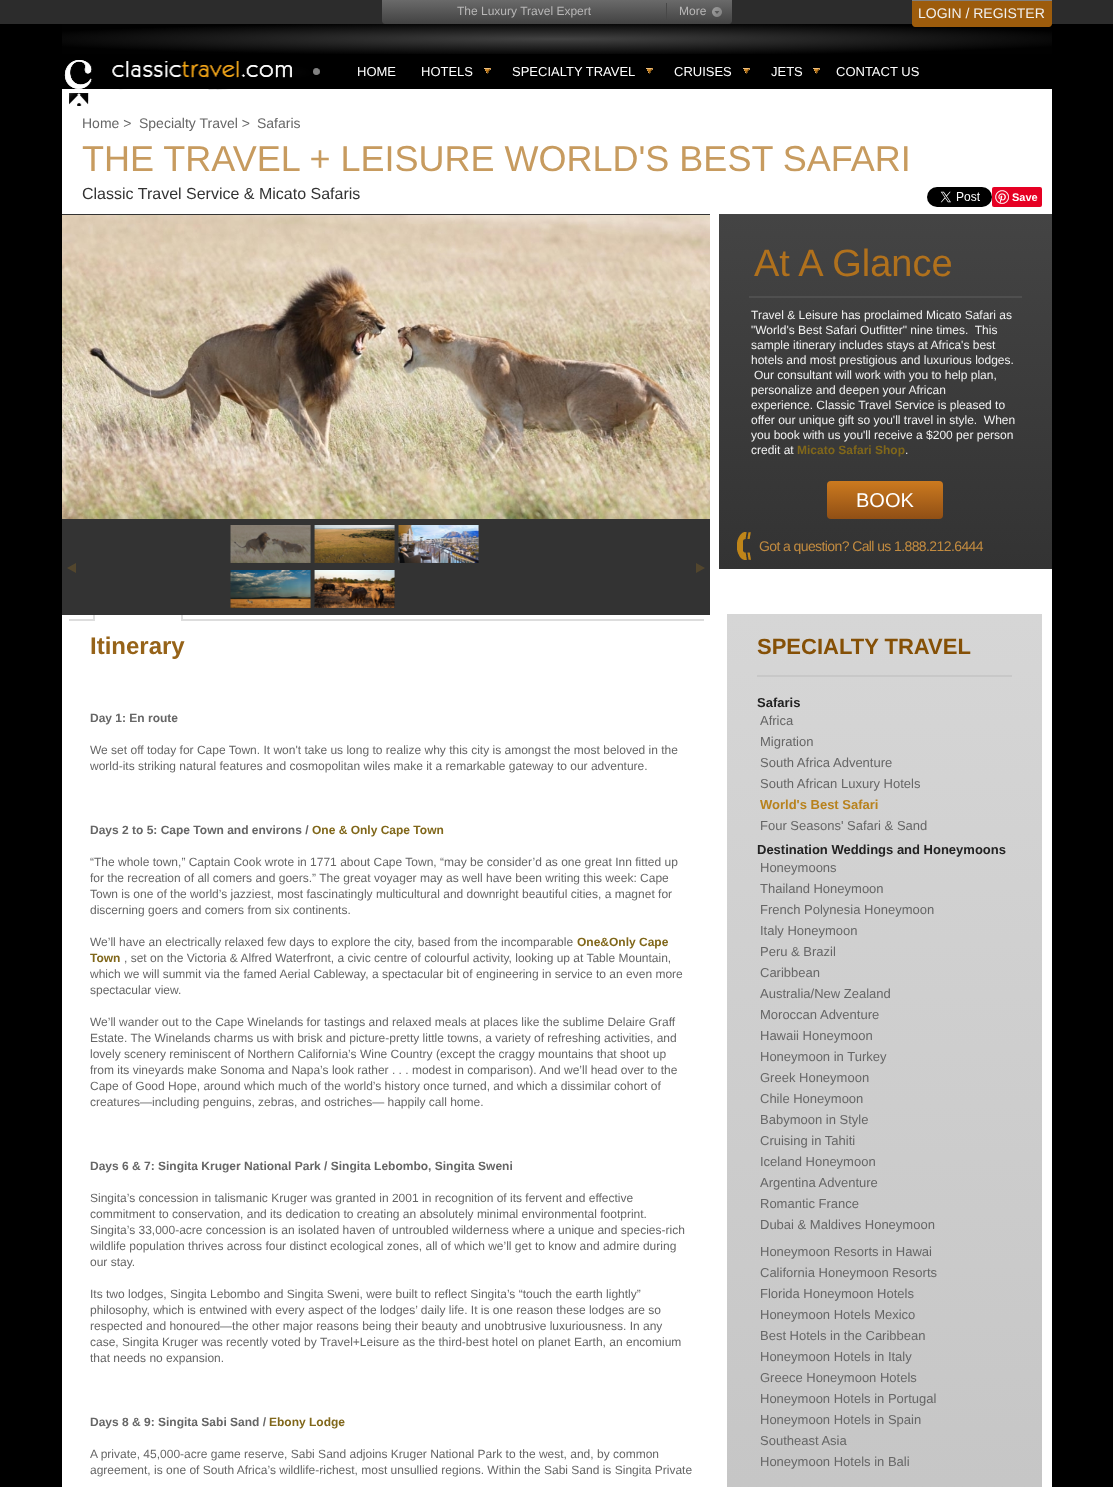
<?xml version="1.0" encoding="UTF-8"?>
<svg xmlns="http://www.w3.org/2000/svg" width="1113" height="1487">
    <defs>
        <linearGradient id="g1" gradientUnits="userSpaceOnUse" x1="557" y1="0" x2="557" y2="24"><stop offset="0" stop-color="#6A6A6A"/><stop offset="1" stop-color="#424242"/></linearGradient>
        <radialGradient id="g2" gradientUnits="userSpaceOnUse" cx="0" cy="0" r="1" gradientTransform="matrix(700 0 0 21 557 39)"><stop offset="0" stop-color="#424242"/><stop offset="0.8" stop-color="#010101"/></radialGradient>
        <linearGradient id="g3" gradientUnits="userSpaceOnUse" x1="886" y1="214" x2="886" y2="569"><stop offset="0" stop-color="#444444"/><stop offset="1" stop-color="#333333"/></linearGradient>
        <linearGradient id="g4" gradientUnits="userSpaceOnUse" x1="885" y1="481" x2="885" y2="519"><stop offset="0" stop-color="#CC7A1F"/><stop offset="1" stop-color="#904F15"/></linearGradient>
        <linearGradient id="g5" gradientUnits="userSpaceOnUse" x1="884" y1="614" x2="885" y2="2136"><stop offset="0" stop-color="#D6D6D6"/><stop offset="1" stop-color="#BABABA"/></linearGradient>
    </defs>
    <rect width="100%" height="100%" fill="#000000"/>
    <rect x="0" y="0" width="1113" height="24" fill="#2C2C2C"/>
    <path d="M 382 0 H 732 V 21 C 732 22.5 730.5 24 729 24 H 385 C 383.5 24 382 22.5 382 21 Z" fill="url(#g1)"/>
    <text x="457" y="15" font-family="Liberation Sans" font-size="12" fill="#B8B7B7">The Luxury Travel Expert</text>
    <rect x="666" y="3" width="1" height="18" fill="#484848"/>
    <text x="679" y="15" font-family="Liberation Sans" font-size="12" fill="#B8B7B7">More</text>
    <image x="712" y="7" width="10" height="10" href="img_01.png"/>
    <rect x="62" y="24" width="990" height="30" fill="url(#g2)"/>
    <path d="M 912 0 H 1052 V 24 C 1052 25.5 1050.5 27 1049 27 H 915 C 913.5 27 912 25.5 912 24 Z" fill="#9D5C0C"/>
    <rect x="912" y="0" width="140" height="1" fill="#808080"/>
    <text x="918" y="18" font-family="Liberation Sans" font-size="14" fill="#F1F1F1">LOGIN / REGISTER</text>
    <rect x="62" y="89" width="990" height="1398" fill="#FFFFFF"/>
    <image x="64" y="60" width="256" height="46" href="img_02.png"/>
    <text x="357" y="76" font-family="Liberation Sans" font-size="13" fill="#FFFFFF">HOME</text>
    <text x="421" y="76" font-family="Liberation Sans" font-size="13" fill="#FFFFFF">HOTELS</text>
    <image x="484" y="68" width="7" height="6" href="img_03.png"/>
    <text x="512" y="76" font-family="Liberation Sans" font-size="13" fill="#FFFFFF">SPECIALTY TRAVEL</text>
    <image x="646" y="68" width="7" height="6" href="img_03.png"/>
    <text x="674" y="76" font-family="Liberation Sans" font-size="13" fill="#FFFFFF">CRUISES</text>
    <image x="743" y="68" width="7" height="6" href="img_03.png"/>
    <text x="771" y="76" font-family="Liberation Sans" font-size="13" fill="#FFFFFF">JETS</text>
    <image x="813" y="68" width="7" height="6" href="img_03.png"/>
    <text x="836" y="76" font-family="Liberation Sans" font-size="13" fill="#FFFFFF">CONTACT US</text>
    <text x="82" y="128" font-family="Liberation Sans" font-size="14" fill="#666666">Home &gt;</text>
    <text x="139" y="128" font-family="Liberation Sans" font-size="14" fill="#666666">Specialty Travel &gt;</text>
    <text x="257" y="128" font-family="Liberation Sans" font-size="14" fill="#666666">Safaris</text>
    <text x="82" y="171" font-family="Liberation Sans" font-size="36" fill="#C79B5F">THE TRAVEL + LEISURE WORLD'S BEST SAFARI</text>
    <text x="82" y="199" font-family="Liberation Sans" font-size="16" fill="#333333">Classic Travel Service &amp; Micato Safaris</text>
    <image x="927" y="187" width="65" height="20" href="img_04.png"/>
    <rect x="992" y="187" width="50" height="20" rx="2" fill="#E60023"/>
    <image x="995" y="190" width="14" height="14" href="img_05.png"/>
    <text x="1012" y="201" font-family="Liberation Sans" font-size="11" font-weight="700" fill="#FFFFFF">Save</text>
    <rect x="62" y="214" width="648" height="306" fill="#333333"/>
    <image x="62" y="215" width="648" height="304" href="img_06.png"/>
    <rect x="69" y="619" width="635" height="2" fill="#DDDDDD"/>
    <rect x="95" y="619" width="86" height="2" fill="#FFFFFF"/>
    <path d="M 103 580 H 173 C 179 580 183 584 183 590 V 621 H 93 V 590 C 93 584 97 580 103 580 Z M 103 582 H 173 C 177 582 181 586 181 590 V 621 H 95 V 590 C 95 586 99 582 103 582 Z" fill="#DDDDDD" fill-rule="evenodd"/>
    <rect x="62" y="520" width="648" height="95" fill="#333333"/>
    <image x="67" y="563" width="9" height="10" href="img_07.png"/>
    <image x="230" y="525" width="81" height="38" href="img_08.png"/>
    <image x="314" y="525" width="81" height="38" href="img_09.png"/>
    <image x="398" y="525" width="81" height="38" href="img_10.png"/>
    <image x="230" y="570" width="81" height="38" href="img_11.png"/>
    <image x="314" y="570" width="81" height="38" href="img_12.png"/>
    <image x="696" y="563" width="9" height="10" href="img_13.png"/>
    <rect x="719" y="214" width="333" height="355" fill="url(#g3)"/>
    <rect x="749" y="296" width="273" height="2" fill="#4F4F4F"/>
    <text x="754" y="276" font-family="Liberation Sans" font-size="38" fill="#B0711D">At A Glance</text>
    <text font-family="Liberation Sans" font-size="12" fill="#F1F1F1" xml:space="preserve"><tspan x="751" y="319">Travel &amp; Leisure has proclaimed Micato Safari as</tspan><tspan x="751" y="334">"World's Best Safari Outfitter" nine times.  This</tspan><tspan x="751" y="349">sample itinerary includes stays at Africa's best</tspan><tspan x="751" y="364">hotels and most prestigious and luxurious lodges.</tspan></text>
    <text x="754" y="379" font-family="Liberation Sans" font-size="12" fill="#F1F1F1">Our consultant will work with you to help plan,</text>
    <text font-family="Liberation Sans" font-size="12" fill="#F1F1F1" xml:space="preserve"><tspan x="751" y="394">personalize and deepen your African</tspan><tspan x="751" y="409">experience. Classic Travel Service is pleased to</tspan><tspan x="751" y="424">offer our unique gift so you'll travel in style.  When</tspan><tspan x="751" y="439">you book with us you'll receive a $200 per person</tspan><tspan x="751" y="454">credit at</tspan></text>
    <text x="797" y="454" font-family="Liberation Sans" font-size="12" font-weight="700" fill="#80671A">Micato Safari Shop</text>
    <text x="905" y="454" font-family="Liberation Sans" font-size="12" fill="#F1F1F1">.</text>
    <rect x="827" y="481" width="116" height="38" rx="4" fill="url(#g4)"/>
    <text x="856" y="507" font-family="Liberation Sans" font-size="20" fill="#FFFFFF">BOOK</text>
    <image x="737" y="532" width="14" height="28" href="img_14.png"/>
    <text x="759" y="551" font-family="Liberation Sans" font-size="14" letter-spacing="-0.6" fill="#C28B40">Got a question? Call us 1.888.212.6444</text>
    <text x="90" y="654" font-family="Liberation Sans" font-size="24" font-weight="700" fill="#966319">Itinerary</text>
    <text x="90" y="722" font-family="Liberation Sans" font-size="12" font-weight="700" fill="#666666">Day 1: En route</text>
    <text font-family="Liberation Sans" font-size="12" fill="#666666">
        <tspan x="90" y="754">We set off today for Cape Town. It won't take us long to realize why this city is amongst the most beloved in the</tspan>
        <tspan x="90" y="770">world-its striking natural features and cosmopolitan wiles make it a remarkable gateway to our adventure.</tspan>
    </text>
    <text x="90" y="834" font-family="Liberation Sans" font-size="12" font-weight="700" fill="#666666">Days 2 to 5: Cape Town and environs /</text>
    <text x="312" y="834" font-family="Liberation Sans" font-size="12" font-weight="700" fill="#80671A">One &amp; Only Cape Town</text>
    <text font-family="Liberation Sans" font-size="12" fill="#666666">
        <tspan x="90" y="866">“The whole town,” Captain Cook wrote in 1771 about Cape Town, “may be consider’d as one great Inn fitted up</tspan>
        <tspan x="90" y="882">for the recreation of all comers and goers.” The great voyager may as well have been writing this week: Cape</tspan>
        <tspan x="90" y="898">Town is one of the world’s jazziest, most fascinatingly multicultural and downright beautiful cities, a magnet for</tspan>
        <tspan x="90" y="914">discerning goers and comers from six continents.</tspan>
    </text>
    <text x="90" y="946" font-family="Liberation Sans" font-size="12" fill="#666666">We’ll have an electrically relaxed few days to explore the city, based from the incomparable</text>
    <text x="577" y="946" font-family="Liberation Sans" font-size="12" font-weight="700" fill="#80671A">One&amp;Only Cape</text>
    <text x="90" y="962" font-family="Liberation Sans" font-size="12" font-weight="700" fill="#80671A">Town</text>
    <text x="124" y="962" font-family="Liberation Sans" font-size="12" fill="#666666">, set on the Victoria &amp; Alfred Waterfront, a civic centre of colourful activity, looking up at Table Mountain,</text>
    <text font-family="Liberation Sans" font-size="12" fill="#666666">
        <tspan x="90" y="978">which we will summit via the famed Aerial Cableway, a spectacular bit of engineering in service to an even more</tspan>
        <tspan x="90" y="994">spectacular view.</tspan>
    </text>
    <text font-family="Liberation Sans" font-size="12" fill="#666666">
        <tspan x="90" y="1026">We’ll wander out to the Cape Winelands for tastings and relaxed meals at places like the sublime Delaire Graff</tspan>
        <tspan x="90" y="1042">Estate. The Winelands charms us with brisk and picture-pretty little towns, a variety of refreshing activities, and</tspan>
        <tspan x="90" y="1058">lovely scenery reminiscent of Northern California’s Wine Country (except the craggy mountains that shoot up</tspan>
        <tspan x="90" y="1074">from its vineyards make Sonoma and Napa’s look rather . . . modest in comparison). And we’ll head over to the</tspan>
        <tspan x="90" y="1090">Cape of Good Hope, around which much of the world’s history once turned, and which a dissimilar cohort of</tspan>
        <tspan x="90" y="1106">creatures—including penguins, zebras, and ostriches— happily call home.</tspan>
    </text>
    <text x="90" y="1170" font-family="Liberation Sans" font-size="12" font-weight="700" fill="#666666">Days 6 &amp; 7: Singita Kruger National Park / Singita Lebombo, Singita Sweni</text>
    <text font-family="Liberation Sans" font-size="12" fill="#666666">
        <tspan x="90" y="1202">Singita’s concession in talismanic Kruger was granted in 2001 in recognition of its fervent and effective</tspan>
        <tspan x="90" y="1218">commitment to conservation, and its dedication to creating an absolutely minimal environmental footprint.</tspan>
        <tspan x="90" y="1234">Singita’s 33,000-acre concession is an isolated haven of untroubled wilderness where a unique and species-rich</tspan>
        <tspan x="90" y="1250">wildlife population thrives across four distinct ecological zones, all of which we’ll get to know and admire during</tspan>
        <tspan x="90" y="1266">our stay.</tspan>
    </text>
    <text font-family="Liberation Sans" font-size="12" fill="#666666">
        <tspan x="90" y="1298">Its two lodges, Singita Lebombo and Singita Sweni, were built to reflect Singita’s “touch the earth lightly”</tspan>
        <tspan x="90" y="1314">philosophy, which is entwined with every aspect of the lodges’ daily life. It is one reason these lodges are so</tspan>
        <tspan x="90" y="1330">respected and honoured—the other major reasons being their beauty and unobtrusive luxuriousness. In any</tspan>
        <tspan x="90" y="1346">case, Singita Kruger was recently voted by Travel+Leisure as the third-best hotel on planet Earth, an encomium</tspan>
        <tspan x="90" y="1362">that needs no expansion.</tspan>
    </text>
    <text x="90" y="1426" font-family="Liberation Sans" font-size="12" font-weight="700" fill="#666666">Days 8 &amp; 9: Singita Sabi Sand /</text>
    <text x="269" y="1426" font-family="Liberation Sans" font-size="12" font-weight="700" fill="#80671A">Ebony Lodge</text>
    <text font-family="Liberation Sans" font-size="12" fill="#666666">
        <tspan x="90" y="1458">A private, 45,000-acre game reserve, Sabi Sand adjoins Kruger National Park to the west, and, by common</tspan>
        <tspan x="90" y="1474">agreement, is one of South Africa’s wildlife-richest, most unsullied regions. Within the Sabi Sand is Singita Private</tspan>
    </text>
    <rect x="727" y="614" width="315" height="873" fill="url(#g5)"/>
    <rect x="757" y="675" width="255" height="2" fill="#C8C8C8"/>
    <text x="757" y="654" font-family="Liberation Sans" font-size="22" font-weight="700" fill="#855006">SPECIALTY TRAVEL</text>
    <text x="757" y="707" font-family="Liberation Sans" font-size="13" font-weight="700" fill="#222222">Safaris</text>
    <text font-family="Liberation Sans" font-size="13" fill="#666666">
        <tspan x="760" y="725">Africa</tspan>
        <tspan x="760" y="746">Migration</tspan>
        <tspan x="760" y="767">South Africa Adventure</tspan>
        <tspan x="760" y="788">South African Luxury Hotels</tspan>
    </text>
    <text x="760" y="809" font-family="Liberation Sans" font-size="13" font-weight="700" fill="#B8821D">World's Best Safari</text>
    <text x="760" y="830" font-family="Liberation Sans" font-size="13" fill="#666666">Four Seasons' Safari &amp; Sand</text>
    <text x="757" y="854" font-family="Liberation Sans" font-size="13" font-weight="700" fill="#222222">Destination Weddings and Honeymoons</text>
    <text font-family="Liberation Sans" font-size="13" fill="#666666">
        <tspan x="760" y="872">Honeymoons</tspan>
        <tspan x="760" y="893">Thailand Honeymoon</tspan>
        <tspan x="760" y="914">French Polynesia Honeymoon</tspan>
        <tspan x="760" y="935">Italy Honeymoon</tspan>
        <tspan x="760" y="956">Peru &amp; Brazil</tspan>
        <tspan x="760" y="977">Caribbean</tspan>
        <tspan x="760" y="998">Australia/New Zealand</tspan>
        <tspan x="760" y="1019">Moroccan Adventure</tspan>
        <tspan x="760" y="1040">Hawaii Honeymoon</tspan>
        <tspan x="760" y="1061">Honeymoon in Turkey</tspan>
        <tspan x="760" y="1082">Greek Honeymoon</tspan>
        <tspan x="760" y="1103">Chile Honeymoon</tspan>
        <tspan x="760" y="1124">Babymoon in Style</tspan>
        <tspan x="760" y="1145">Cruising in Tahiti</tspan>
        <tspan x="760" y="1166">Iceland Honeymoon</tspan>
        <tspan x="760" y="1187">Argentina Adventure</tspan>
        <tspan x="760" y="1208">Romantic France</tspan>
        <tspan x="760" y="1229">Dubai &amp; Maldives Honeymoon</tspan>
    </text>
    <text font-family="Liberation Sans" font-size="13" fill="#666666">
        <tspan x="760" y="1256">Honeymoon Resorts in Hawai</tspan>
        <tspan x="760" y="1277">California Honeymoon Resorts</tspan>
        <tspan x="760" y="1298">Florida Honeymoon Hotels</tspan>
        <tspan x="760" y="1319">Honeymoon Hotels Mexico</tspan>
        <tspan x="760" y="1340">Best Hotels in the Caribbean</tspan>
        <tspan x="760" y="1361">Honeymoon Hotels in Italy</tspan>
        <tspan x="760" y="1382">Greece Honeymoon Hotels</tspan>
        <tspan x="760" y="1403">Honeymoon Hotels in Portugal</tspan>
        <tspan x="760" y="1424">Honeymoon Hotels in Spain</tspan>
        <tspan x="760" y="1445">Southeast Asia</tspan>
        <tspan x="760" y="1466">Honeymoon Hotels in Bali</tspan>
    </text>
</svg>
